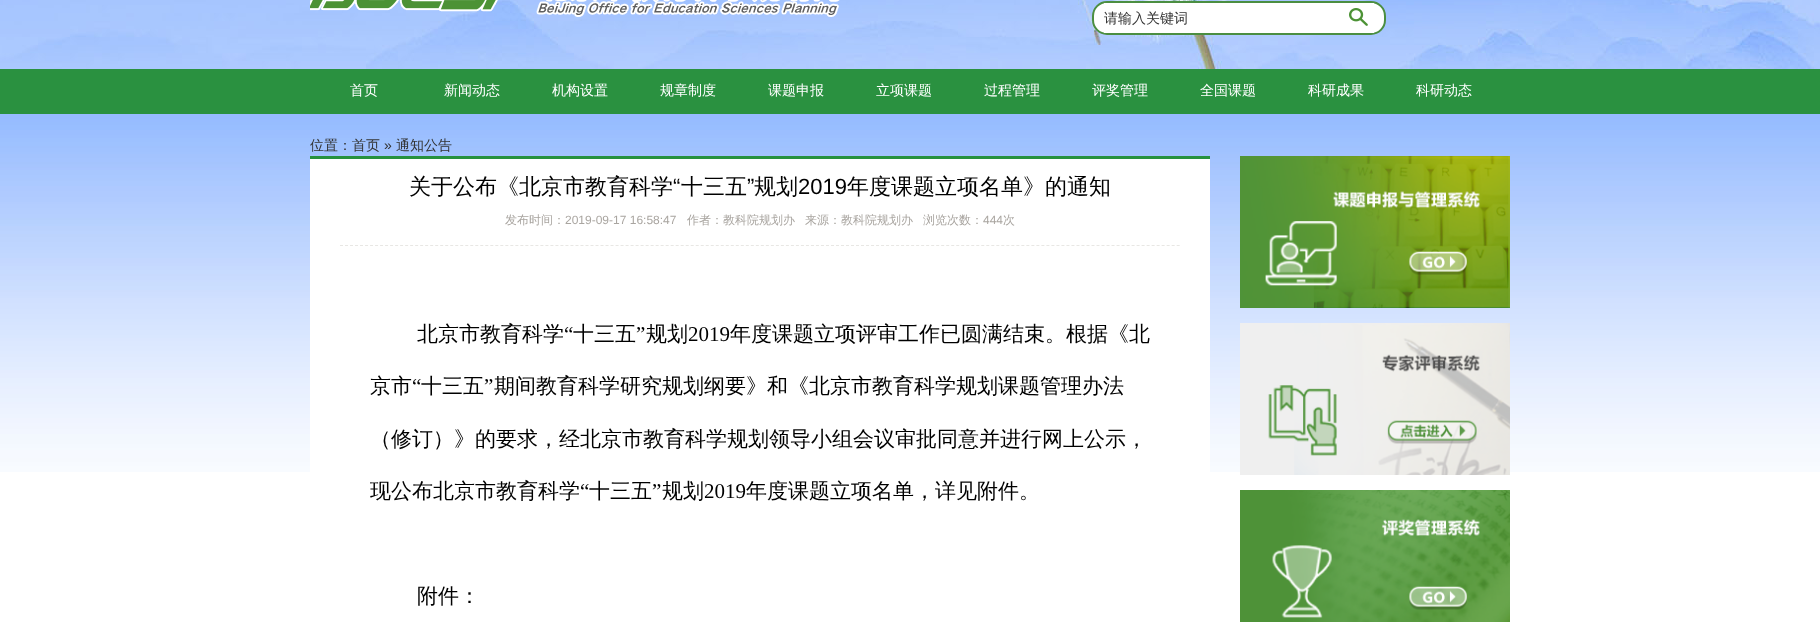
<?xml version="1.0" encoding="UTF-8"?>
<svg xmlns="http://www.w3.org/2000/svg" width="1820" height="622">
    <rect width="100%" height="100%" fill="#FFFFFF"/>
    <image x="0" y="0" width="1820" height="69" href="img_01.png"/>
    <image x="310" y="0" width="530" height="17" href="img_02.png"/>
    <rect x="1093" y="2" width="292" height="32" rx="14" fill="#FFFFFF" stroke="#4B8E41" stroke-width="2"/>
    <rect x="1104" y="3" width="3" height="30" fill="#FFFFFF"/>
    <text x="1104" y="23" font-family="WenQuanYi Zen Hei" font-size="14" font-weight="500" fill="#333333">请输入关键词</text>
    <rect x="1371" y="3" width="3" height="30" fill="#FFFFFF"/>
    <image x="1349" y="8" width="19" height="18" href="img_03.png"/>
    <rect x="0" y="69" width="1820" height="45" fill="#2A9140"/>
    <text x="350" y="95" font-family="WenQuanYi Zen Hei" font-size="14" font-weight="500" fill="#FFFFFF">首页</text>
    <text x="444" y="95" font-family="WenQuanYi Zen Hei" font-size="14" font-weight="500" fill="#FFFFFF">新闻动态</text>
    <text x="552" y="95" font-family="WenQuanYi Zen Hei" font-size="14" font-weight="500" fill="#FFFFFF">机构设置</text>
    <text x="660" y="95" font-family="WenQuanYi Zen Hei" font-size="14" font-weight="500" fill="#FFFFFF">规章制度</text>
    <text x="768" y="95" font-family="WenQuanYi Zen Hei" font-size="14" font-weight="500" fill="#FFFFFF">课题申报</text>
    <text x="876" y="95" font-family="WenQuanYi Zen Hei" font-size="14" font-weight="500" fill="#FFFFFF">立项课题</text>
    <text x="984" y="95" font-family="WenQuanYi Zen Hei" font-size="14" font-weight="500" fill="#FFFFFF">过程管理</text>
    <text x="1092" y="95" font-family="WenQuanYi Zen Hei" font-size="14" font-weight="500" fill="#FFFFFF">评奖管理</text>
    <text x="1200" y="95" font-family="WenQuanYi Zen Hei" font-size="14" font-weight="500" fill="#FFFFFF">全国课题</text>
    <text x="1308" y="95" font-family="WenQuanYi Zen Hei" font-size="14" font-weight="500" fill="#FFFFFF">科研成果</text>
    <text x="1416" y="95" font-family="WenQuanYi Zen Hei" font-size="14" font-weight="500" fill="#FFFFFF">科研动态</text>
    <image x="0" y="114" width="1820" height="358" href="img_04.png"/>
    <text x="310" y="150" font-family="WenQuanYi Zen Hei" font-size="14" font-weight="500" fill="#333333">位置：首页</text>
    <text x="384" y="150" font-family="Liberation Sans" font-size="14" fill="#333333">»</text>
    <text x="396" y="150" font-family="WenQuanYi Zen Hei" font-size="14" font-weight="500" fill="#333333">通知公告</text>
    <rect x="310" y="159" width="900" height="313" fill="#FFFFFF"/>
    <rect x="310" y="156" width="900" height="3" fill="#26913F"/>
    <text x="409" y="194" font-family="WenQuanYi Zen Hei" font-size="22" font-weight="500" fill="#000000">关于公布《北京市教育科学</text>
    <text x="673" y="194" font-family="Liberation Sans" font-size="22" fill="#000000">“</text>
    <text x="681" y="194" font-family="WenQuanYi Zen Hei" font-size="22" font-weight="500" fill="#000000">十三五</text>
    <text x="747" y="194" font-family="Liberation Sans" font-size="22" fill="#000000">”</text>
    <text x="754" y="194" font-family="WenQuanYi Zen Hei" font-size="22" font-weight="500" fill="#000000">规划</text>
    <text x="798" y="194" font-family="Liberation Sans" font-size="22" fill="#000000">2019</text>
    <text x="847" y="194" font-family="WenQuanYi Zen Hei" font-size="22" font-weight="500" fill="#000000">年度课题立项名单》的通知</text>
    <path d="M 340 245.5 H 1180" fill="none" stroke="#E8E7E4" stroke-dasharray="3 2.01"/>
    <text x="505" y="224" font-family="WenQuanYi Zen Hei" font-size="12" font-weight="500" fill="#A9A5A0">发布时间：</text>
    <text x="565" y="224" font-family="Liberation Sans" font-size="12" fill="#A9A5A0">2019-09-17 16:58:47</text>
    <text x="687" y="224" font-family="WenQuanYi Zen Hei" font-size="12" font-weight="500" fill="#A9A5A0">作者：教科院规划办</text>
    <text x="805" y="224" font-family="WenQuanYi Zen Hei" font-size="12" font-weight="500" fill="#A9A5A0">来源：教科院规划办</text>
    <text x="923" y="224" font-family="WenQuanYi Zen Hei" font-size="12" font-weight="500" fill="#A9A5A0">浏览次数：</text>
    <text x="983" y="224" font-family="Liberation Sans" font-size="12" fill="#A9A5A0">444</text>
    <text x="1003" y="224" font-family="WenQuanYi Zen Hei" font-size="12" font-weight="500" fill="#A9A5A0">次</text>
    <text x="417" y="341" font-family="WenQuanYi Zen Hei" font-size="21" font-weight="500" fill="#000000">北京市教育科学</text>
    <text x="564" y="341" font-family="Liberation Serif" font-size="21" fill="#000000">“</text>
    <text x="573" y="341" font-family="WenQuanYi Zen Hei" font-size="21" font-weight="500" fill="#000000">十三五</text>
    <text x="636" y="341" font-family="Liberation Serif" font-size="21" fill="#000000">”</text>
    <text x="646" y="341" font-family="WenQuanYi Zen Hei" font-size="21" font-weight="500" fill="#000000">规划</text>
    <text x="688" y="341" font-family="Liberation Serif" font-size="21" fill="#000000">2019</text>
    <text x="730" y="341" font-family="WenQuanYi Zen Hei" font-size="21" font-weight="500" fill="#000000">年度课题立项评审工作已圆满结束。根据《北</text>
    <text x="370" y="393" font-family="WenQuanYi Zen Hei" font-size="21" font-weight="500" fill="#000000">京市</text>
    <text x="412" y="393" font-family="Liberation Serif" font-size="21" fill="#000000">“</text>
    <text x="421" y="393" font-family="WenQuanYi Zen Hei" font-size="21" font-weight="500" fill="#000000">十三五</text>
    <text x="484" y="393" font-family="Liberation Serif" font-size="21" fill="#000000">”</text>
    <text x="494" y="393" font-family="WenQuanYi Zen Hei" font-size="21" font-weight="500" fill="#000000">期间教育科学研究规划纲要》和《北京市教育科学规划课题管理办法</text>
    <text x="370" y="446" font-family="WenQuanYi Zen Hei" font-size="21" font-weight="500" fill="#000000">（修订）》的要求，经北京市教育科学规划领导小组会议审批同意并进行网上公示，</text>
    <text x="370" y="498" font-family="WenQuanYi Zen Hei" font-size="21" font-weight="500" fill="#000000">现公布北京市教育科学</text>
    <text x="580" y="498" font-family="Liberation Serif" font-size="21" fill="#000000">“</text>
    <text x="589" y="498" font-family="WenQuanYi Zen Hei" font-size="21" font-weight="500" fill="#000000">十三五</text>
    <text x="652" y="498" font-family="Liberation Serif" font-size="21" fill="#000000">”</text>
    <text x="662" y="498" font-family="WenQuanYi Zen Hei" font-size="21" font-weight="500" fill="#000000">规划</text>
    <text x="704" y="498" font-family="Liberation Serif" font-size="21" fill="#000000">2019</text>
    <text x="746" y="498" font-family="WenQuanYi Zen Hei" font-size="21" font-weight="500" fill="#000000">年度课题立项名单，详见附件。</text>
    <text x="417" y="603" font-family="WenQuanYi Zen Hei" font-size="21" font-weight="500" fill="#000000">附件：</text>
    <image x="1240" y="156" width="270" height="152" href="img_05.png"/>
    <image x="1240" y="323" width="270" height="152" href="img_06.png"/>
    <image x="1240" y="490" width="270" height="132" href="img_07.png"/>
</svg>
